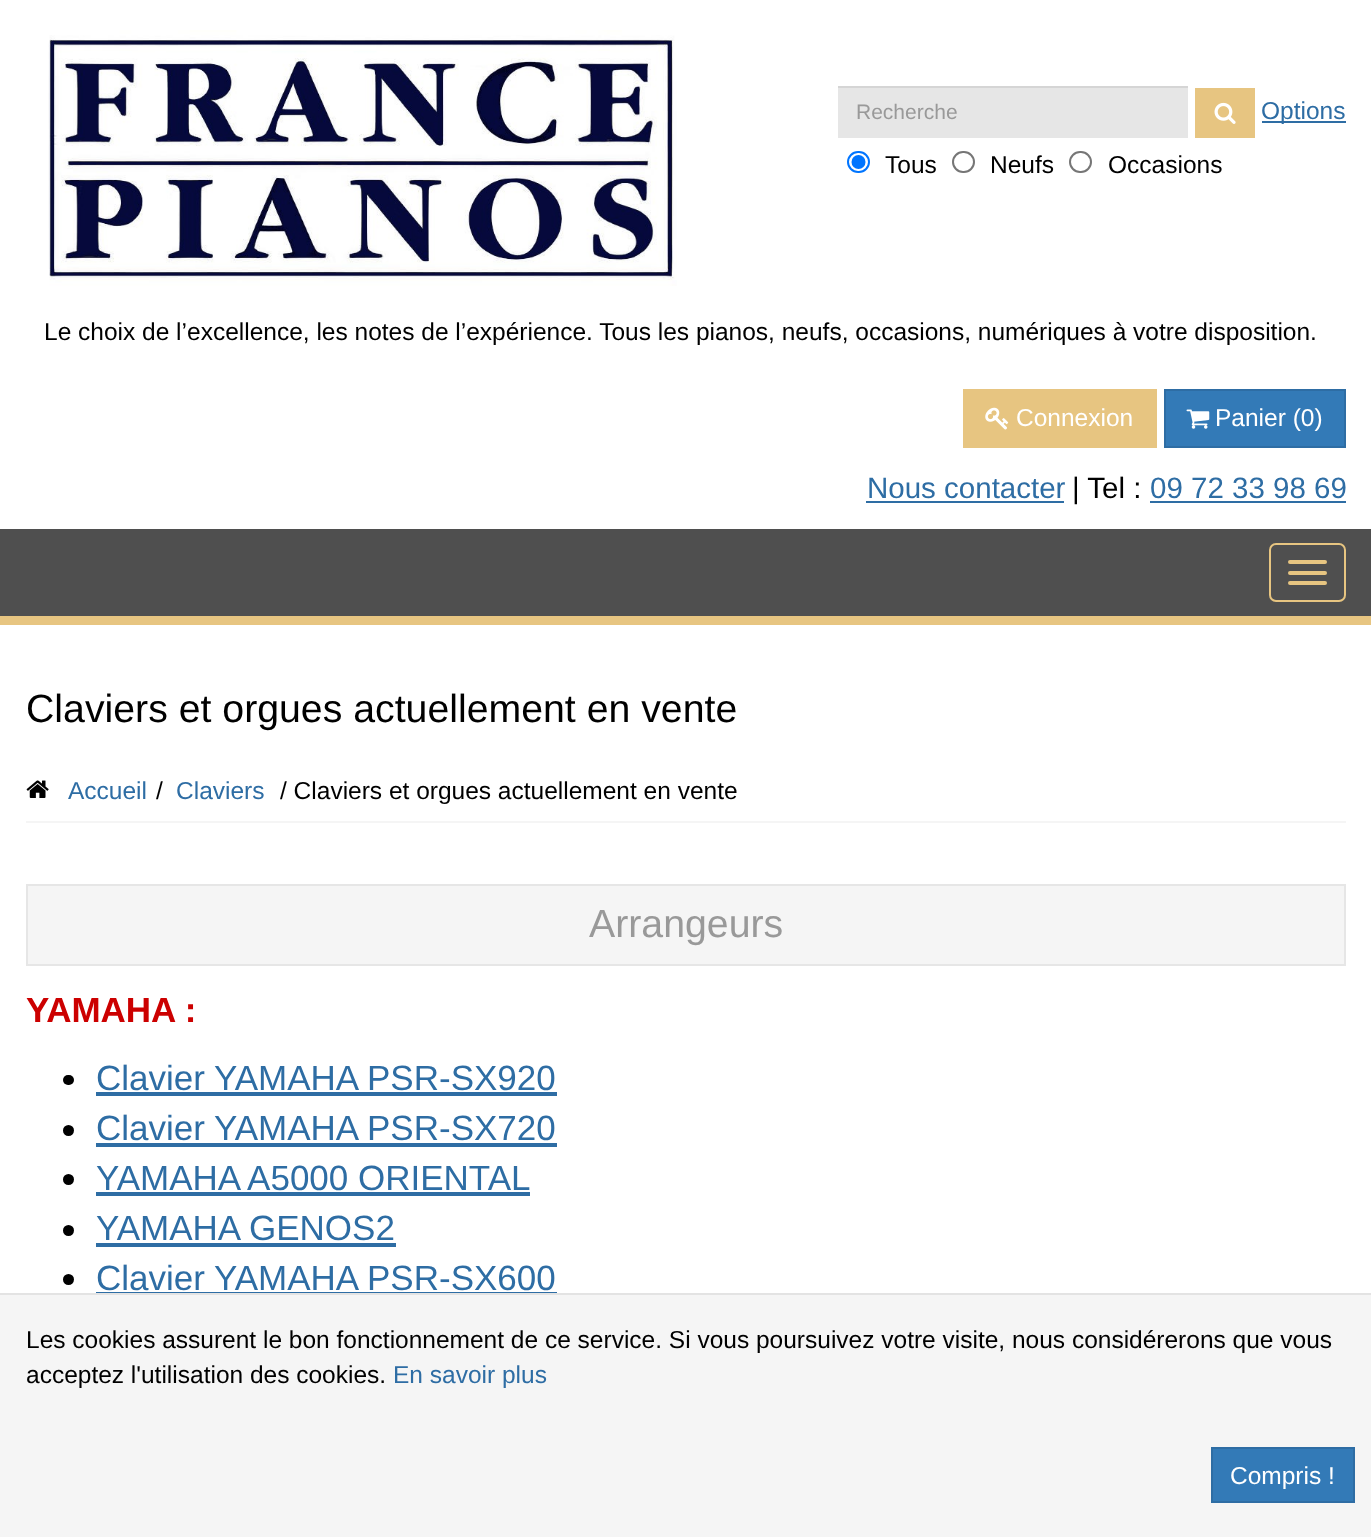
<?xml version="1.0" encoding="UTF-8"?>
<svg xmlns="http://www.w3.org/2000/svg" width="1371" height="1537">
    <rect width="100%" height="100%" fill="#FFFFFF"/>
    <rect x="26" y="821" width="1320" height="2" fill="#F5F5F5"/>
    <image x="48" y="30" width="629" height="256" href="img_01.png"/>
    <rect x="838" y="88" width="350" height="50" fill="#E6E6E6"/>
    <rect x="838" y="86" width="350" height="2" fill="#D5D5D5"/>
    <text x="856" y="119" font-family="Liberation Sans" font-size="21" fill="#999999">Recherche</text>
    <rect x="1195" y="88" width="60" height="50" fill="#E7C581"/>
    <image x="1214" y="102" width="22" height="22" href="img_02.png"/>
    <rect x="1262" y="121" width="84" height="2" fill="#2E6DA4"/>
    <text x="1261" y="119" font-family="Liberation Sans" font-size="24.5" fill="#2E6DA4">Options</text>
    <rect x="848" y="152" width="21" height="20" rx="10" fill="none" stroke="#0075FF" stroke-width="2"/>
    <circle cx="858.5" cy="162" r="7" fill="#0075FF"/>
    <text x="885" y="173" font-family="Liberation Sans" font-size="24.5" fill="#000000">Tous</text>
    <rect x="953" y="152" width="21" height="20" rx="10" fill="none" stroke="#767676" stroke-width="2"/>
    <text x="990" y="173" font-family="Liberation Sans" font-size="24.5" fill="#000000">Neufs</text>
    <rect x="1070" y="152" width="21" height="20" rx="10" fill="none" stroke="#767676" stroke-width="2"/>
    <text x="1108" y="173" font-family="Liberation Sans" font-size="24.5" fill="#000000">Occasions</text>
    <text x="44" y="340" font-family="Liberation Sans" font-size="24.5" fill="#000000">Le choix de l’excellence, les notes de l’expérience. Tous les pianos, neufs, occasions, numériques à votre disposition.</text>
    <rect x="963" y="389" width="194" height="59" fill="#E7C581"/>
    <image x="985" y="407" width="24" height="23" href="img_03.png"/>
    <text x="1016" y="426" font-family="Liberation Sans" font-size="24.5" fill="#FFFFFF">Connexion</text>
    <rect x="1165" y="390" width="180" height="57" fill="#337AB7" stroke="#2E6DA4" stroke-width="2"/>
    <image x="1186" y="409" width="24" height="20" href="img_04.png"/>
    <text x="1215" y="426" font-family="Liberation Sans" font-size="24.5" fill="#FFFFFF">Panier (0)</text>
    <text x="867" y="498" font-family="Liberation Sans" font-size="29.5" fill="#2E6DA4">Nous contacter</text>
    <rect x="866" y="501" width="198" height="2" fill="#2E6DA4"/>
    <text x="1072" y="498" font-family="Liberation Sans" font-size="29.5" fill="#000000">| Tel :</text>
    <text x="1150" y="498" font-family="Liberation Sans" font-size="29.5" fill="#2E6DA4">09 72 33 98 69</text>
    <rect x="1150" y="501" width="196" height="2" fill="#2E6DA4"/>
    <rect x="0" y="529" width="1371" height="87" fill="#4F4F4F"/>
    <rect x="0" y="616" width="1371" height="9" fill="#E7C581"/>
    <rect x="1270" y="544" width="75" height="57" rx="6" fill="none" stroke="#E7C581" stroke-width="2"/>
    <rect x="1288" y="560" width="39" height="4" rx="2" fill="#E7C581"/>
    <rect x="1288" y="571" width="39" height="4" rx="2" fill="#E7C581"/>
    <rect x="1288" y="581" width="39" height="4" rx="2" fill="#E7C581"/>
    <text x="26" y="722" font-family="Liberation Sans" font-size="39.25" fill="#000000">Claviers et orgues actuellement en vente</text>
    <image x="26" y="780" width="23" height="18" href="img_05.png"/>
    <text x="68" y="799" font-family="Liberation Sans" font-size="24.5" fill="#2E6DA4">Accueil</text>
    <text x="156" y="799" font-family="Liberation Sans" font-size="24.5" fill="#000000">/</text>
    <text x="176" y="799" font-family="Liberation Sans" font-size="24.5" fill="#2E6DA4">Claviers</text>
    <text x="280" y="799" font-family="Liberation Sans" font-size="24.5" fill="#000000">/ Claviers et orgues actuellement en vente</text>
    <rect x="27" y="885" width="1318" height="80" fill="#F5F5F5" stroke="#E6E6E6" stroke-width="2"/>
    <text x="589" y="937" font-family="Liberation Sans" font-size="39.25" fill="#999999">Arrangeurs</text>
    <text x="26" y="1022" font-family="Liberation Sans" font-size="35" font-weight="700" fill="#CC0000">YAMAHA :</text>
    <rect x="63" y="1075" width="11" height="10" rx="5" fill="#000000"/>
    <text x="96" y="1090" font-family="Liberation Sans" font-size="35" fill="#2E6DA4">Clavier YAMAHA PSR-SX920</text>
    <rect x="96" y="1092" width="461" height="4" fill="#2E6DA4"/>
    <circle cx="68.5" cy="1130.5" r="5.5" fill="#000000"/>
    <text x="96" y="1140" font-family="Liberation Sans" font-size="35" fill="#2E6DA4">Clavier YAMAHA PSR-SX720</text>
    <rect x="96" y="1143" width="461" height="4" fill="#2E6DA4"/>
    <circle cx="68.5" cy="1179.5" r="5.5" fill="#000000"/>
    <text x="96" y="1190" font-family="Liberation Sans" font-size="35" fill="#2E6DA4">YAMAHA A5000 ORIENTAL</text>
    <rect x="96" y="1192" width="434" height="4" fill="#2E6DA4"/>
    <circle cx="68.5" cy="1230.5" r="5.5" fill="#000000"/>
    <text x="96" y="1240" font-family="Liberation Sans" font-size="35" fill="#2E6DA4">YAMAHA GENOS2</text>
    <rect x="96" y="1243" width="300" height="4" fill="#2E6DA4"/>
    <circle cx="68.5" cy="1279.5" r="5.5" fill="#000000"/>
    <text x="96" y="1290" font-family="Liberation Sans" font-size="35" fill="#2E6DA4">Clavier YAMAHA PSR-SX600</text>
    <rect x="96" y="1292" width="461" height="1" fill="#2E6DA4"/>
    <rect x="0" y="1295" width="1371" height="242" fill="#F5F5F5"/>
    <rect x="0" y="1293" width="1371" height="2" fill="#E3E3E3"/>
    <text font-family="Liberation Sans" font-size="24.5" fill="#000000">
        <tspan x="26" y="1348">Les cookies assurent le bon fonctionnement de ce service. Si vous poursuivez votre visite, nous considérerons que vous</tspan>
        <tspan x="26" y="1383">acceptez l'utilisation des cookies.</tspan>
    </text>
    <text x="393" y="1383" font-family="Liberation Sans" font-size="24.5" fill="#2E6DA4">En savoir plus</text>
    <rect x="1212" y="1448" width="142" height="54" fill="#337AB7" stroke="#2E6DA4" stroke-width="2"/>
    <text x="1230" y="1484" font-family="Liberation Sans" font-size="24.5" fill="#FFFFFF">Compris !</text>
</svg>
